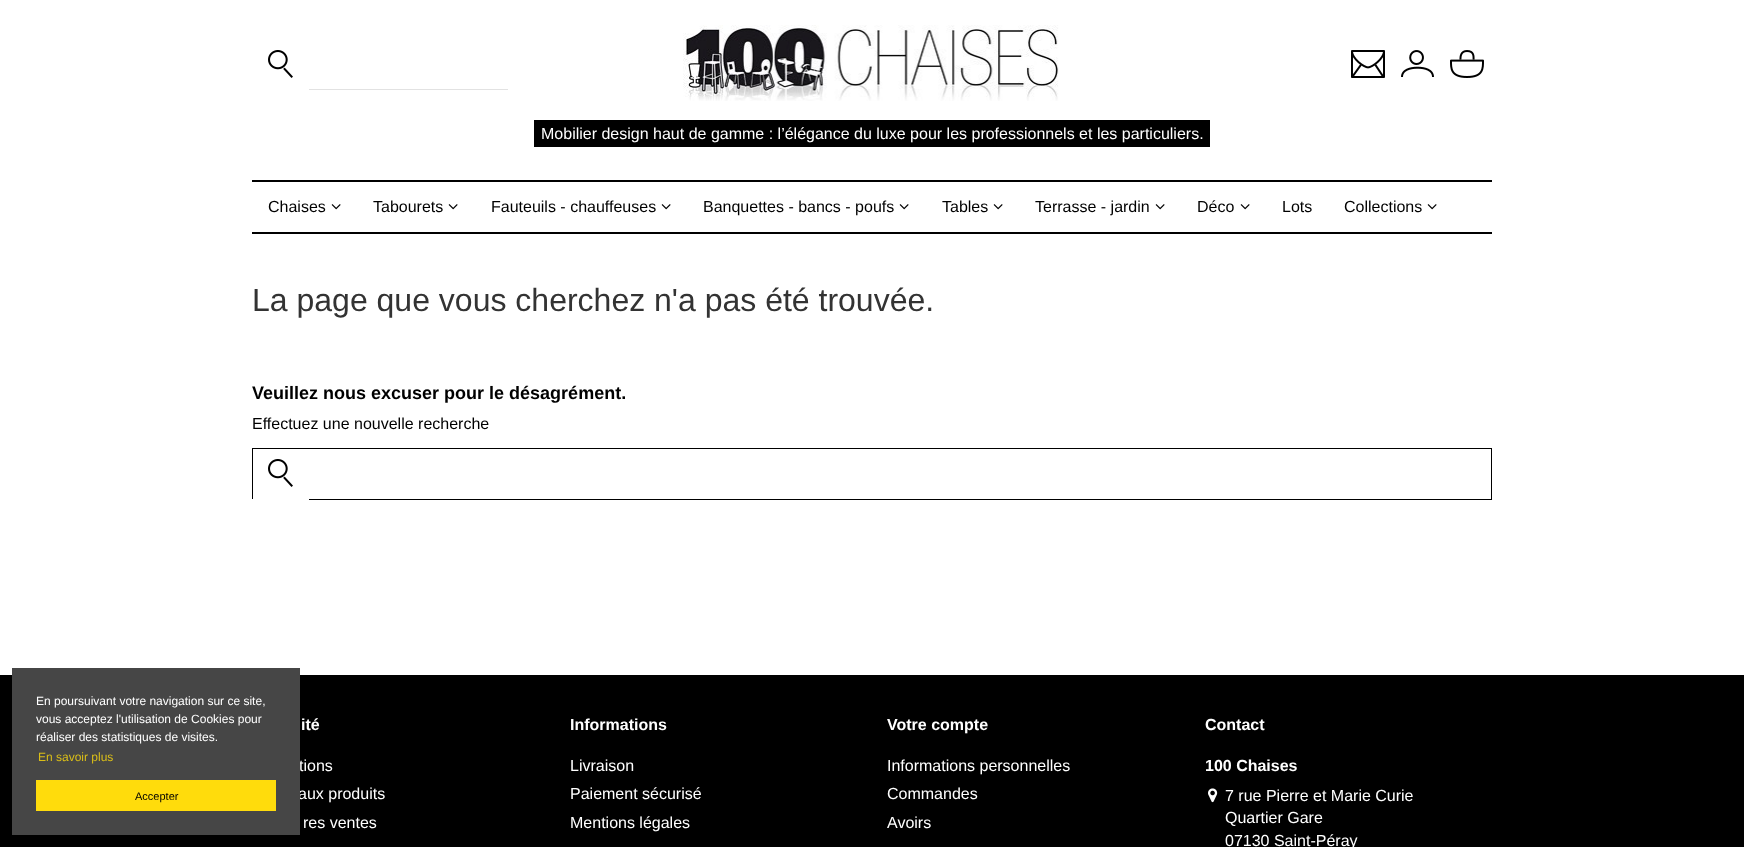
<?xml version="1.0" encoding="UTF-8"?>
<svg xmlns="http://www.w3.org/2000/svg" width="1744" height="847">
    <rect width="100%" height="100%" fill="#FFFFFF"/>
    <rect x="0" y="675" width="1744" height="172" fill="#000000"/>
    <text x="299" y="771" font-family="Liberation Sans" font-size="16" fill="#FFFFFF">tions</text>
    <text x="298" y="799" font-family="Liberation Sans" font-size="16" fill="#FFFFFF">aux produits</text>
    <rect x="12" y="668" width="288" height="167" fill="#464646"/>
    <text font-family="Liberation Sans" font-size="12" fill="#FFFFFF">
        <tspan x="36" y="705">En poursuivant votre navigation sur ce site,</tspan>
        <tspan x="36" y="723">vous acceptez l'utilisation de Cookies pour</tspan>
        <tspan x="36" y="741">réaliser des statistiques de visites.</tspan>
    </text>
    <text x="38" y="761" font-family="Liberation Sans" font-size="12" fill="#DABE18">En savoir plus</text>
    <rect x="36" y="780" width="240" height="31" fill="#FFDC0C"/>
    <text x="135" y="800" font-family="Liberation Sans" font-size="11" fill="#000000">Accepter</text>
    <image x="268" y="50" width="25" height="28" href="img_01.png"/>
    <rect x="309" y="89" width="199" height="1" fill="#E2E2E2"/>
    <image x="683" y="25" width="376" height="76" href="img_02.png"/>
    <image x="1351" y="50" width="34" height="28" href="img_03.png"/>
    <image x="1401" y="50" width="33" height="27" href="img_04.png"/>
    <image x="1450" y="50" width="34" height="28" href="img_05.png"/>
    <rect x="534" y="120" width="676" height="27" fill="#000000"/>
    <text x="541" y="139" font-family="Liberation Sans" font-size="16" fill="#FFFFFF">Mobilier design haut de gamme : l’élégance du luxe pour les professionnels et les particuliers.</text>
    <rect x="252" y="180" width="1240" height="2" fill="#000000"/>
    <rect x="252" y="232" width="1240" height="2" fill="#000000"/>
    <text x="268" y="212" font-family="Liberation Sans" font-size="16" fill="#000000">Chaises</text>
    <image x="331" y="204" width="10" height="6" href="img_06.png"/>
    <text x="373" y="212" font-family="Liberation Sans" font-size="16" fill="#000000">Tabourets</text>
    <image x="448" y="204" width="10" height="6" href="img_06.png"/>
    <text x="491" y="212" font-family="Liberation Sans" font-size="16" fill="#000000">Fauteuils - chauffeuses</text>
    <image x="661" y="204" width="10" height="6" href="img_06.png"/>
    <text x="703" y="212" font-family="Liberation Sans" font-size="16" fill="#000000">Banquettes - bancs - poufs</text>
    <image x="899" y="204" width="10" height="6" href="img_06.png"/>
    <text x="942" y="212" font-family="Liberation Sans" font-size="16" fill="#000000">Tables</text>
    <image x="993" y="204" width="10" height="6" href="img_06.png"/>
    <text x="1035" y="212" font-family="Liberation Sans" font-size="16" fill="#000000">Terrasse - jardin</text>
    <image x="1155" y="204" width="10" height="6" href="img_06.png"/>
    <text x="1197" y="212" font-family="Liberation Sans" font-size="16" fill="#000000">Déco</text>
    <image x="1240" y="204" width="10" height="6" href="img_06.png"/>
    <text x="1282" y="212" font-family="Liberation Sans" font-size="16" fill="#000000">Lots</text>
    <text x="1344" y="212" font-family="Liberation Sans" font-size="16" fill="#000000">Collections</text>
    <image x="1427" y="204" width="10" height="6" href="img_06.png"/>
    <text x="252" y="311" font-family="Liberation Sans" font-size="32" fill="#333333">La page que vous cherchez n'a pas été trouvée.</text>
    <text x="252" y="399" font-family="Liberation Sans" font-size="18" font-weight="700" fill="#000000">Veuillez nous excuser pour le désagrément.</text>
    <text x="252" y="429" font-family="Liberation Sans" font-size="16" fill="#000000">Effectuez une nouvelle recherche</text>
    <rect x="252.5" y="448.5" width="1239" height="51" fill="none" stroke="#000000"/>
    <rect x="252" y="499" width="57" height="1" fill="#FFFFFF"/>
    <image x="268" y="459" width="25" height="28" href="img_01.png"/>
    <text x="301" y="730" font-family="Liberation Sans" font-size="16" font-weight="700" fill="#FFFFFF">ité</text>
    <text x="303" y="828" font-family="Liberation Sans" font-size="16" fill="#FFFFFF">res ventes</text>
    <text x="570" y="730" font-family="Liberation Sans" font-size="16" font-weight="700" fill="#FFFFFF">Informations</text>
    <text font-family="Liberation Sans" font-size="16" fill="#FFFFFF">
        <tspan x="570" y="771">Livraison</tspan>
        <tspan x="570" y="799">Paiement sécurisé</tspan>
        <tspan x="570" y="828">Mentions légales</tspan>
    </text>
    <text x="887" y="730" font-family="Liberation Sans" font-size="16" font-weight="700" fill="#FFFFFF">Votre compte</text>
    <text font-family="Liberation Sans" font-size="16" fill="#FFFFFF">
        <tspan x="887" y="771">Informations personnelles</tspan>
        <tspan x="887" y="799">Commandes</tspan>
        <tspan x="887" y="828">Avoirs</tspan>
    </text>
    <text x="1205" y="730" font-family="Liberation Sans" font-size="16" font-weight="700" fill="#FFFFFF">Contact</text>
    <text x="1205" y="771" font-family="Liberation Sans" font-size="16" font-weight="700" fill="#FFFFFF">100 Chaises</text>
    <image x="1208" y="788" width="10" height="15" href="img_07.png"/>
    <text font-family="Liberation Sans" font-size="16" fill="#FFFFFF">
        <tspan x="1225" y="801">7 rue Pierre et Marie Curie</tspan>
        <tspan x="1225" y="823">Quartier Gare</tspan>
        <tspan x="1225" y="846">07130 Saint-Péray</tspan>
    </text>
</svg>
